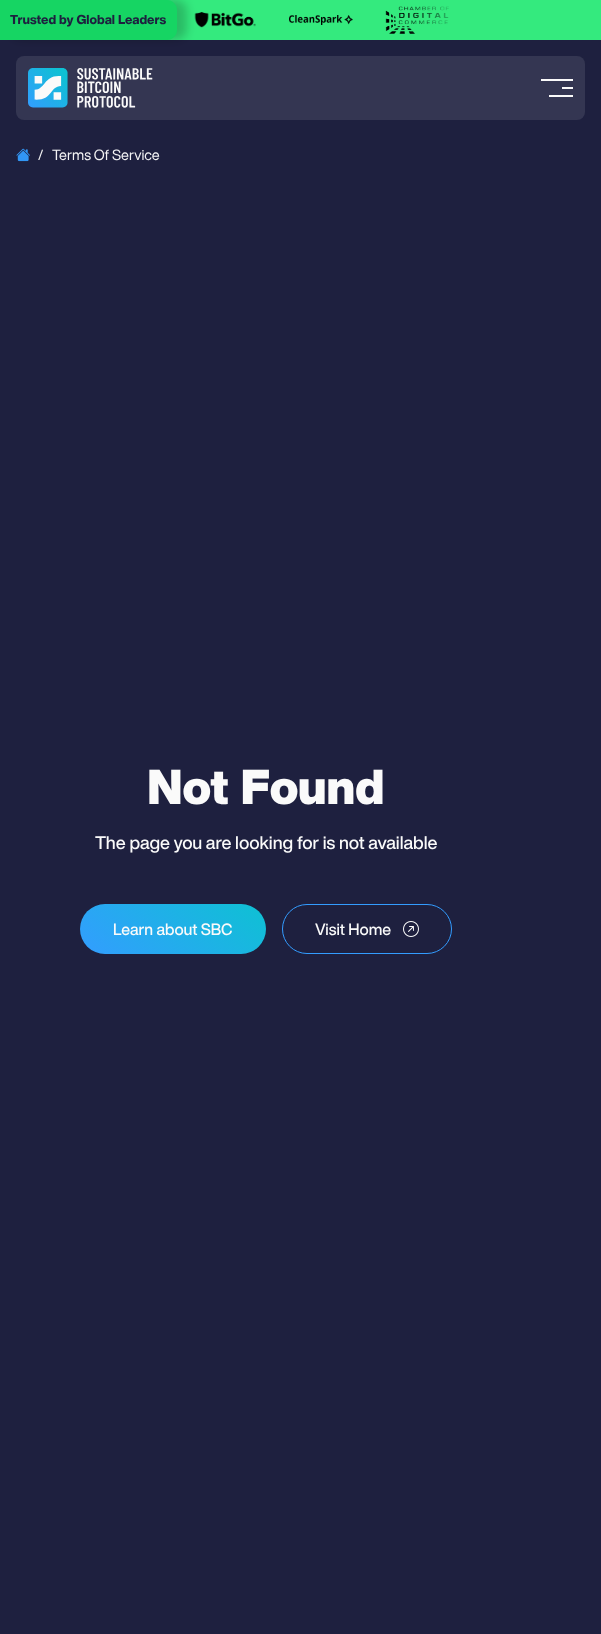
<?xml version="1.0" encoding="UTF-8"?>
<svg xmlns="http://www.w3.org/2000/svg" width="601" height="1634">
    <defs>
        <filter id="blur1" x="-50%" y="-200%" width="200%" height="500%"><feGaussianBlur stdDeviation="5"/></filter>
        <linearGradient id="g1" gradientUnits="userSpaceOnUse" x1="465" y1="20" x2="407" y2="20"><stop offset="0" stop-color="#34EA7E"/><stop offset="1" stop-color="#34EA7E" stop-opacity="0"/></linearGradient>
        <linearGradient id="g2" gradientUnits="userSpaceOnUse" x1="122" y1="989" x2="224" y2="869"><stop offset="0" stop-color="#339DFF"/><stop offset="1" stop-color="#0EC1D3"/></linearGradient>
    </defs>
    <rect width="100%" height="100%" fill="#1E203F"/>
    <rect x="167" y="0" width="434" height="40" fill="#34EA7E"/>
    <rect x="10" y="0" width="177" height="40" rx="10" fill="#000000" fill-opacity="0.2" filter="url(#blur1)"/>
    <path d="M 0 0 H 167 C 172.5 0 177 4.5 177 10 V 30 C 177 35.5 172.5 40 167 40 H 0 Z" fill="#16D563"/>
    <text x="10" y="24" font-family="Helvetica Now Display" font-size="12.75" font-weight="800" fill="#1E203F">Trusted by Global Leaders</text>
    <image x="385" y="6" width="64" height="28" href="img_01.png"/>
    <image x="194" y="12" width="62" height="16" href="img_02.png"/>
    <image x="289" y="15" width="64" height="10" href="img_03.png"/>
    <rect x="408" y="6" width="41" height="28" fill="url(#g1)"/>
    <rect x="16" y="56" width="569" height="64" rx="8" fill="#343652"/>
    <image x="28" y="68" width="125" height="40" href="img_04.png"/>
    <rect x="541" y="79" width="32" height="2" fill="#FAFAFA"/>
    <rect x="562" y="87" width="11" height="2" fill="#FAFAFA"/>
    <rect x="549" y="95" width="24" height="2" fill="#FAFAFA"/>
    <image x="16" y="148" width="14" height="14" href="img_05.png"/>
    <text x="38" y="160" font-family="Helvetica Now Display" font-size="14.5" fill="#F4F4F5">/</text>
    <text x="52" y="160" font-family="Helvetica Now Display" font-size="14.5" fill="#F4F4F5">Terms Of Service</text>
    <text x="147" y="804" font-family="Helvetica Now Display" font-size="48" font-weight="900" fill="#FAFAFA">Not Found</text>
    <text x="95" y="849" font-family="Helvetica Now Display" font-size="18" font-weight="500" fill="#FAFAFA">The page you are looking for is not available</text>
    <rect x="80" y="904" width="186" height="50" rx="25" fill="url(#g2)"/>
    <text x="113" y="935" font-family="Helvetica Now Display" font-size="16" font-weight="500" fill="#FAFAFA">Learn about SBC</text>
    <rect x="282.5" y="904.5" width="169" height="49" rx="24.5" fill="none" stroke="#339CFF"/>
    <text x="315" y="935" font-family="Helvetica Now Display" font-size="16" font-weight="500" fill="#FAFAFA">Visit Home</text>
    <image x="403" y="921" width="16" height="16" href="img_06.png"/>
</svg>
